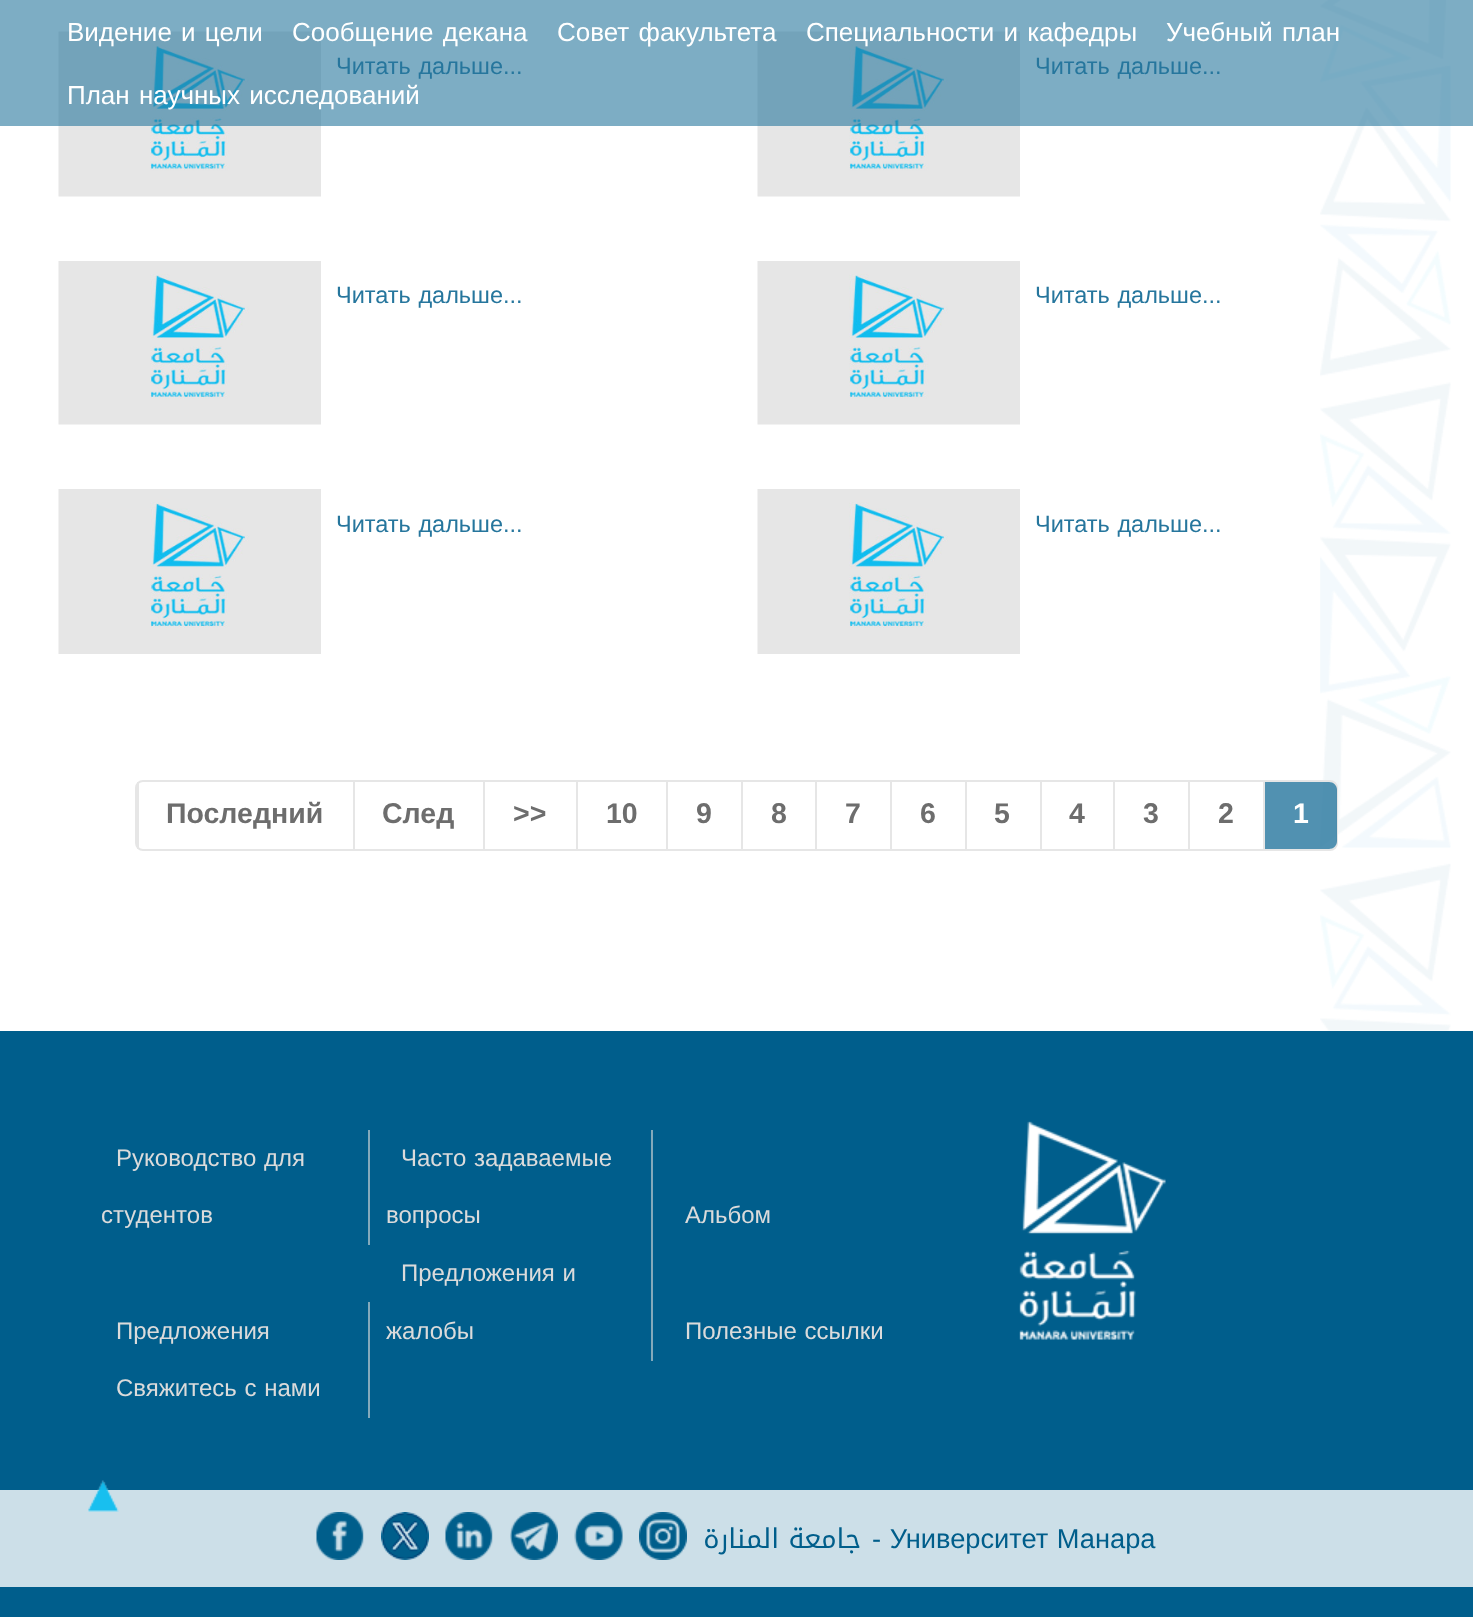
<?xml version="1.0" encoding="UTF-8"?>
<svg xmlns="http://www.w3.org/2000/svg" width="1473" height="1617">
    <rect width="100%" height="100%" fill="#FFFFFF"/>
    <image x="1320" y="0" width="131" height="1031" href="img_01.png"/>
    <image x="58" y="31" width="263" height="166" href="img_02.png"/>
    <text x="336" y="74" word-spacing="1" font-family="Liberation Sans" font-size="23.5" fill="#26769D">Читать дальше...</text>
    <image x="757" y="31" width="263" height="166" href="img_02.png"/>
    <text x="1035" y="74" word-spacing="1" font-family="Liberation Sans" font-size="23.5" fill="#26769D">Читать дальше...</text>
    <rect x="0" y="0" width="1473" height="126" fill="#26769D" fill-opacity="0.6"/>
    <text x="67" y="41" word-spacing="2" font-family="Liberation Sans" font-size="26" fill="#FFFFFF">Видение и цели</text>
    <text x="292" y="41" word-spacing="2" font-family="Liberation Sans" font-size="26" fill="#FFFFFF">Сообщение декана</text>
    <text x="557" y="41" word-spacing="2" font-family="Liberation Sans" font-size="26" fill="#FFFFFF">Совет факультета</text>
    <text x="806" y="41" word-spacing="2" font-family="Liberation Sans" font-size="26" fill="#FFFFFF">Специальности и кафедры</text>
    <text x="1166" y="41" word-spacing="2" font-family="Liberation Sans" font-size="26" fill="#FFFFFF">Учебный план</text>
    <text x="67" y="104" word-spacing="2" font-family="Liberation Sans" font-size="26" fill="#FFFFFF">План научных исследований</text>
    <image x="58" y="261" width="263" height="164" href="img_03.png"/>
    <text x="336" y="303" word-spacing="1" font-family="Liberation Sans" font-size="23.5" fill="#26769D">Читать дальше...</text>
    <image x="757" y="261" width="263" height="164" href="img_03.png"/>
    <text x="1035" y="303" word-spacing="1" font-family="Liberation Sans" font-size="23.5" fill="#26769D">Читать дальше...</text>
    <image x="58" y="489" width="263" height="165" href="img_04.png"/>
    <text x="336" y="532" word-spacing="1" font-family="Liberation Sans" font-size="23.5" fill="#26769D">Читать дальше...</text>
    <image x="757" y="489" width="263" height="165" href="img_04.png"/>
    <text x="1035" y="532" word-spacing="1" font-family="Liberation Sans" font-size="23.5" fill="#26769D">Читать дальше...</text>
    <rect x="136" y="781" width="1201" height="69" rx="7" fill="none" stroke="#E6E6E6" stroke-width="2"/>
    <rect x="137" y="782" width="2" height="67" fill="#E6E6E6"/>
    <text x="166" y="823" font-family="Liberation Sans" font-size="28.5" font-weight="700" fill="#6D6D6D">Последний</text>
    <rect x="353" y="782" width="2" height="67" fill="#E6E6E6"/>
    <text x="382" y="823" font-family="Liberation Sans" font-size="28.5" font-weight="700" fill="#6D6D6D">След</text>
    <rect x="483" y="782" width="2" height="67" fill="#E6E6E6"/>
    <text x="513" y="823" font-family="Liberation Sans" font-size="28.5" font-weight="700" fill="#6D6D6D">&gt;&gt;</text>
    <rect x="576" y="782" width="2" height="67" fill="#E6E6E6"/>
    <text x="606" y="823" font-family="Liberation Sans" font-size="28.5" font-weight="700" fill="#6D6D6D">10</text>
    <rect x="666" y="782" width="2" height="67" fill="#E6E6E6"/>
    <text x="696" y="823" font-family="Liberation Sans" font-size="28.5" font-weight="700" fill="#6D6D6D">9</text>
    <rect x="741" y="782" width="2" height="67" fill="#E6E6E6"/>
    <text x="771" y="823" font-family="Liberation Sans" font-size="28.5" font-weight="700" fill="#6D6D6D">8</text>
    <rect x="815" y="782" width="2" height="67" fill="#E6E6E6"/>
    <text x="845" y="823" font-family="Liberation Sans" font-size="28.5" font-weight="700" fill="#6D6D6D">7</text>
    <rect x="890" y="782" width="2" height="67" fill="#E6E6E6"/>
    <text x="920" y="823" font-family="Liberation Sans" font-size="28.5" font-weight="700" fill="#6D6D6D">6</text>
    <rect x="965" y="782" width="2" height="67" fill="#E6E6E6"/>
    <text x="994" y="823" font-family="Liberation Sans" font-size="28.5" font-weight="700" fill="#6D6D6D">5</text>
    <rect x="1040" y="782" width="2" height="67" fill="#E6E6E6"/>
    <text x="1069" y="823" font-family="Liberation Sans" font-size="28.5" font-weight="700" fill="#6D6D6D">4</text>
    <rect x="1113" y="782" width="2" height="67" fill="#E6E6E6"/>
    <text x="1143" y="823" font-family="Liberation Sans" font-size="28.5" font-weight="700" fill="#6D6D6D">3</text>
    <rect x="1188" y="782" width="2" height="67" fill="#E6E6E6"/>
    <text x="1218" y="823" font-family="Liberation Sans" font-size="28.5" font-weight="700" fill="#6D6D6D">2</text>
    <rect x="1263" y="782" width="2" height="67" fill="#E6E6E6"/>
    <path d="M 1265 782 H 1329 C 1333.5 782 1337 785.5 1337 790 V 841 C 1337 845.5 1333.5 849 1329 849 H 1265 Z" fill="#26769D" fill-opacity="0.8"/>
    <text x="1293" y="823" font-family="Liberation Sans" font-size="28.5" font-weight="700" fill="#FFFFFF">1</text>
    <rect x="0" y="1031" width="1473" height="459" fill="#005E8C"/>
    <rect x="368" y="1130" width="2" height="115" fill="#83A9BB"/>
    <text x="116" y="1166" word-spacing="1" font-family="Liberation Sans" font-size="24" fill="#DBDBDB">Руководство для</text>
    <text x="101" y="1223" font-family="Liberation Sans" font-size="24" fill="#DBDBDB">студентов</text>
    <rect x="651" y="1130" width="2" height="231" fill="#83A9BB"/>
    <text x="401" y="1166" word-spacing="1" font-family="Liberation Sans" font-size="24" fill="#DBDBDB">Часто задаваемые</text>
    <text x="386" y="1223" font-family="Liberation Sans" font-size="24" fill="#DBDBDB">вопросы</text>
    <text x="685" y="1223" font-family="Liberation Sans" font-size="24" fill="#DBDBDB">Альбом</text>
    <rect x="368" y="1302" width="2" height="116" fill="#83A9BB"/>
    <text x="116" y="1339" font-family="Liberation Sans" font-size="24" fill="#DBDBDB">Предложения</text>
    <text x="401" y="1281" word-spacing="1" font-family="Liberation Sans" font-size="24" fill="#DBDBDB">Предложения и</text>
    <text x="386" y="1339" font-family="Liberation Sans" font-size="24" fill="#DBDBDB">жалобы</text>
    <text x="685" y="1339" word-spacing="1" font-family="Liberation Sans" font-size="24" fill="#DBDBDB">Полезные ссылки</text>
    <text x="116" y="1396" word-spacing="1" font-family="Liberation Sans" font-size="24" fill="#DBDBDB">Свяжитесь с нами</text>
    <image x="1019" y="1121" width="147" height="219" href="img_05.png"/>
    <rect x="0" y="1490" width="1473" height="97" fill="#CCDFE8"/>
    <image x="88" y="1480" width="31" height="32" href="img_06.png"/>
    <image x="316" y="1512" width="48" height="48" href="img_07.png"/>
    <image x="381" y="1512" width="48" height="48" href="img_08.png"/>
    <image x="445" y="1512" width="48" height="48" href="img_09.png"/>
    <image x="510" y="1512" width="48" height="48" href="img_10.png"/>
    <image x="574" y="1512" width="49" height="48" href="img_11.png"/>
    <image x="639" y="1512" width="48" height="48" href="img_12.png"/>
    <text x="861" y="1548" font-family="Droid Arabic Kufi" font-size="27.25" direction="rtl" fill="#005E8B">جامعة المنارة</text>
    <text x="872" y="1548" word-spacing="1" font-family="Liberation Sans" font-size="27.25" fill="#005E8B">- Университет Манара</text>
    <rect x="0" y="1587" width="1473" height="30" fill="#005E8C"/>
</svg>
